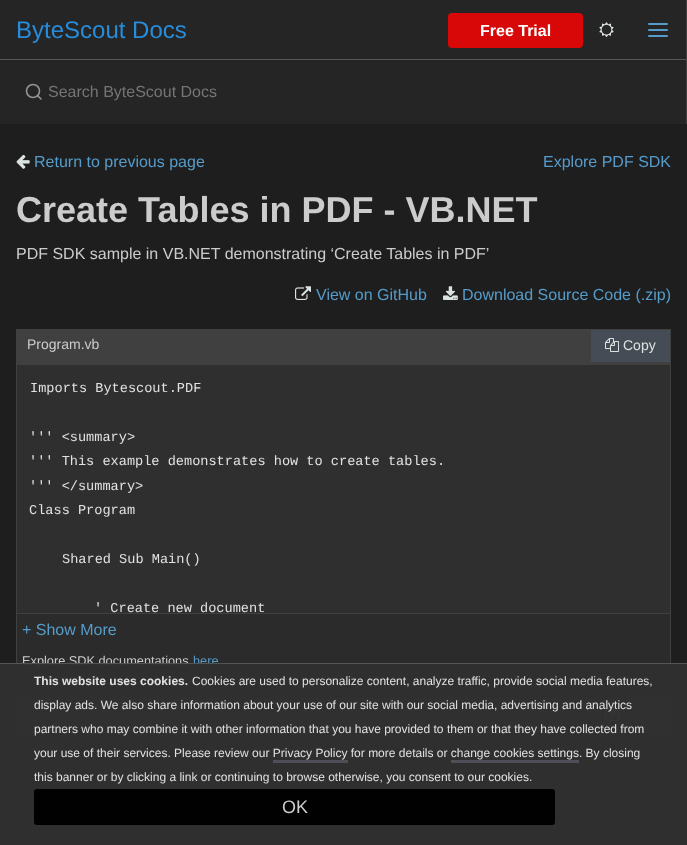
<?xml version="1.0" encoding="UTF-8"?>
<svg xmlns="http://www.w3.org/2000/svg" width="687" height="845">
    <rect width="100%" height="100%" fill="#1E1E1E"/>
    <rect x="0" y="0" width="686" height="124" fill="#252526"/>
    <rect x="686" y="0" width="1" height="124" fill="#404040"/>
    <rect x="0" y="59" width="686" height="1" fill="#585758"/>
    <text x="16" y="38" font-family="Liberation Sans" font-size="24" fill="#278CDA">ByteScout Docs</text>
    <rect x="448" y="13" width="135" height="35" rx="4" fill="#D90808"/>
    <text x="480" y="36" font-family="Liberation Sans" font-size="16" font-weight="700" fill="#FFFFFF">Free Trial</text>
    <image x="599" y="22" width="15" height="16" href="img_01.png"/>
    <path d="M 649 30 H 667 M 649 24 H 667 M 649 36 H 667" fill="none" stroke="#569CCA" stroke-width="2" stroke-linecap="round" stroke-linejoin="round"/>
    <circle cx="33" cy="91" r="6.5" fill="none" stroke="#959396" stroke-width="1.6"/>
    <path d="M 41 99 L 37.5 95.5" fill="none" stroke="#959396" stroke-width="1.6" stroke-linecap="round" stroke-linejoin="round"/>
    <text x="48" y="97" font-family="Liberation Sans" font-size="16" fill="#757575">Search ByteScout Docs</text>
    <image x="16" y="154" width="14" height="15" href="img_02.png"/>
    <text x="34" y="167" font-family="Liberation Sans" font-size="16" fill="#569CCA">Return to previous page</text>
    <text x="543" y="167" font-family="Liberation Sans" font-size="16" fill="#569CCA">Explore PDF SDK</text>
    <text x="16" y="222" font-family="Liberation Sans" font-size="36" font-weight="700" fill="#CCCCCC">Create Tables in PDF - VB.NET</text>
    <text x="16" y="259" font-family="Liberation Sans" font-size="16" fill="#CCCCCC">PDF SDK sample in VB.NET demonstrating ‘Create Tables in PDF’</text>
    <image x="295" y="286" width="16" height="14" href="img_03.png"/>
    <text x="316" y="300" font-family="Liberation Sans" font-size="16" fill="#569CCA">View on GitHub</text>
    <image x="443" y="286" width="15" height="14" href="img_04.png"/>
    <text x="462" y="300" font-family="Liberation Sans" font-size="16" fill="#569CCA">Download Source Code (.zip)</text>
    <rect x="16" y="329" width="655" height="35" fill="#404040"/>
    <text x="27" y="349" font-family="Liberation Sans" font-size="14" fill="#CCCCCC">Program.vb</text>
    <rect x="591" y="330" width="79" height="32" fill="#454C56"/>
    <image x="605" y="338" width="14" height="14" href="img_05.png"/>
    <text x="623" y="350" font-family="Liberation Sans" font-size="14" fill="#DBE3DF">Copy</text>
    <rect x="16.5" y="364.5" width="654" height="249" fill="#2F2F2F" stroke="#404040"/>
    <text x="30" y="392" font-family="Liberation Mono" font-size="13.6" fill="#E3E1E1">Imports Bytescout.PDF</text>
    <text font-family="Liberation Mono" font-size="13.6" fill="#E3E1E1">
        <tspan x="29" y="441">''' &lt;summary&gt;</tspan>
        <tspan x="29" y="465">''' This example demonstrates how to create tables.</tspan>
        <tspan x="29" y="490">''' &lt;/summary&gt;</tspan>
        <tspan x="29" y="514">Class Program</tspan>
    </text>
    <text x="62" y="563" font-family="Liberation Mono" font-size="13.6" fill="#E3E1E1">Shared Sub Main()</text>
    <text x="94" y="612" font-family="Liberation Mono" font-size="13.6" fill="#E3E1E1">' Create new document</text>
    <path d="M 16 614 H 671 V 674 C 671 675.5 669.5 677 668 677 H 19 C 17.5 677 16 675.5 16 674 Z" fill="#2C2B2B"/>
    <path d="M 16 614 H 671 V 674 C 671 676 670 677 668 677 H 19 C 17 677 16 676 16 674 Z M 17 614 H 670 V 674 C 670 675 669 676 668 676 H 19 C 18 676 17 675 17 674 Z" fill="#404040" fill-rule="evenodd"/>
    <text x="22" y="635" font-family="Liberation Sans" font-size="16" fill="#569CCA">+ Show More</text>
    <text x="22" y="665" font-family="Liberation Sans" font-size="12.75" fill="#CCCCCC">Explore SDK documentations</text>
    <text x="193" y="665" font-family="Liberation Sans" font-size="12.75" fill="#569CCA">here</text>
    <rect x="16" y="698" width="655" height="35" fill="#404040"/>
    <rect x="591" y="699" width="79" height="32" fill="#454C56"/>
    <image x="605" y="707" width="14" height="14" href="img_05.png"/>
    <rect x="16.5" y="733.5" width="654" height="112" fill="#2F2F2F" stroke="#404040"/>
    <rect x="0" y="663" width="687" height="182" fill="#2F2F2F" fill-opacity="0.97"/>
    <rect x="0" y="663" width="687" height="1" fill="#585758" fill-opacity="0.97"/>
    <text x="34" y="685" font-family="Liberation Sans" font-size="12" font-weight="700" fill="#E3E1E1">This website uses cookies.</text>
    <text x="192" y="685" font-family="Liberation Sans" font-size="12" fill="#E3E1E1">Cookies are used to personalize content, analyze traffic, provide social media features,</text>
    <text x="34" y="709" font-family="Liberation Sans" font-size="12" fill="#E3E1E1">display ads. We also share information about your use of our site with our social media, advertising and analytics</text>
    <text x="34" y="733" font-family="Liberation Sans" font-size="12" fill="#E3E1E1">partners who may combine it with other information that you have provided to them or that they have collected from</text>
    <text x="34" y="757" font-family="Liberation Sans" font-size="12" fill="#E3E1E1">your use of their services. Please review our Privacy Policy for more details or change cookies settings. By closing</text>
    <rect x="273" y="760" width="75" height="3" fill="#4F4F59"/>
    <rect x="451" y="760" width="128" height="3" fill="#4F4F59"/>
    <text x="34" y="781" font-family="Liberation Sans" font-size="12" fill="#E3E1E1">this banner or by clicking a link or continuing to browse otherwise, you consent to our cookies.</text>
    <rect x="34" y="789" width="521" height="36" rx="3" fill="#000000" fill-opacity="0.97"/>
    <text x="282" y="813" font-family="Liberation Sans" font-size="18" fill="#CCCCCC">OK</text>
</svg>
